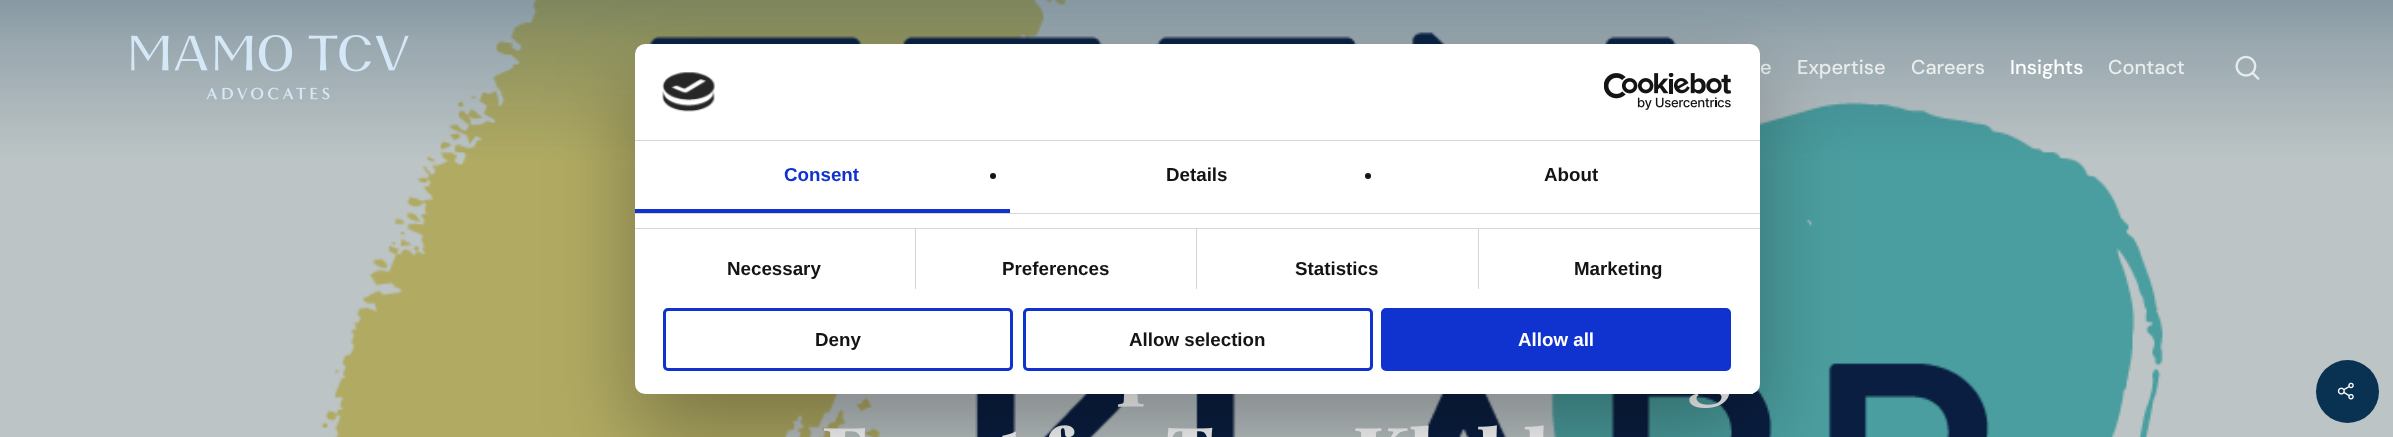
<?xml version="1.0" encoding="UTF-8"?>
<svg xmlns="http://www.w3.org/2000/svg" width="2393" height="437">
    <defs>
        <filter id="blur1" x="-50%" y="-200%" width="200%" height="500%"><feGaussianBlur stdDeviation="42.5"/></filter>
    </defs>
    <rect width="100%" height="100%" fill="#FFFFFF"/>
    <image x="0" y="0" width="2393" height="437" href="img_01.png"/>
    <image x="1117" y="394" width="613" height="14" href="img_02.png"/>
    <image x="823" y="425" width="721" height="12" href="img_03.png"/>
    <circle cx="2347.5" cy="391.5" r="31.5" fill="#093252"/>
    <image x="2337" y="382" width="17" height="18" href="img_04.png"/>
    <image x="131" y="35" width="278" height="65" href="img_05.png"/>
    <text x="1760" y="74" font-family="DM Sans" font-size="20" font-weight="500" fill="#EAEDEE">e</text>
    <text x="1797" y="74" font-family="DM Sans" font-size="20" font-weight="500" fill="#EAEDEE">Expertise</text>
    <text x="1911" y="74" font-family="DM Sans" font-size="20" font-weight="500" fill="#EAEDEE">Careers</text>
    <text x="2010" y="74" font-family="DM Sans" font-size="20" font-weight="500" fill="#FFFFFF">Insights</text>
    <text x="2108" y="74" font-family="DM Sans" font-size="20" font-weight="500" fill="#EAEDEE">Contact</text>
    <image x="2235" y="55" width="25" height="25" href="img_06.png"/>
    <rect x="635" y="84" width="1125" height="350" rx="10" fill="#000000" fill-opacity="0.3" filter="url(#blur1)"/>
    <rect x="635" y="44" width="1125" height="350" rx="10" fill="#FFFFFF"/>
    <rect x="635" y="140" width="1125" height="1" fill="#D6D6D6"/>
    <image x="662" y="72" width="53" height="40" href="img_07.png"/>
    <image x="1604" y="73" width="127" height="37" href="img_08.png"/>
    <rect x="635" y="213" width="1125" height="1" fill="#D6D6D6"/>
    <rect x="635" y="209" width="375" height="4" fill="#1032CF"/>
    <text x="784" y="181" font-family="Liberation Sans" font-size="18.75" font-weight="700" fill="#1032CF">Consent</text>
    <circle cx="993" cy="176" r="3" fill="#141414"/>
    <text x="1166" y="181" font-family="Liberation Sans" font-size="18.75" font-weight="700" fill="#141414">Details</text>
    <circle cx="1368" cy="176" r="3" fill="#141414"/>
    <text x="1544" y="181" font-family="Liberation Sans" font-size="18.75" font-weight="700" fill="#141414">About</text>
    <rect x="635" y="228" width="1125" height="1" fill="#D6D6D6"/>
    <rect x="915" y="229" width="1" height="60" fill="#D6D6D6"/>
    <text x="727" y="275" font-family="Liberation Sans" font-size="18.75" font-weight="700" fill="#141414">Necessary</text>
    <rect x="1196" y="229" width="1" height="60" fill="#D6D6D6"/>
    <text x="1002" y="275" font-family="Liberation Sans" font-size="18.75" font-weight="700" fill="#141414">Preferences</text>
    <rect x="1478" y="229" width="1" height="60" fill="#D6D6D6"/>
    <text x="1295" y="275" font-family="Liberation Sans" font-size="18.75" font-weight="700" fill="#141414">Statistics</text>
    <text x="1574" y="275" font-family="Liberation Sans" font-size="18.75" font-weight="700" fill="#141414">Marketing</text>
    <rect x="664.5" y="309.5" width="347" height="60" rx="3.5" fill="none" stroke="#1032CF" stroke-width="3"/>
    <text x="815" y="346" font-family="Liberation Sans" font-size="18.75" font-weight="700" fill="#141414">Deny</text>
    <rect x="1024.5" y="309.5" width="347" height="60" rx="3.5" fill="none" stroke="#1032CF" stroke-width="3"/>
    <text x="1129" y="346" font-family="Liberation Sans" font-size="18.75" font-weight="700" fill="#141414">Allow selection</text>
    <rect x="1382.5" y="309.5" width="347" height="60" rx="3.5" fill="#1032CF" stroke="#1032CF" stroke-width="3"/>
    <text x="1518" y="346" font-family="Liberation Sans" font-size="18.75" font-weight="700" fill="#FFFFFF">Allow all</text>
    <rect x="1750" y="393" width="3" height="1" fill="#FFFFFF"/>
</svg>
